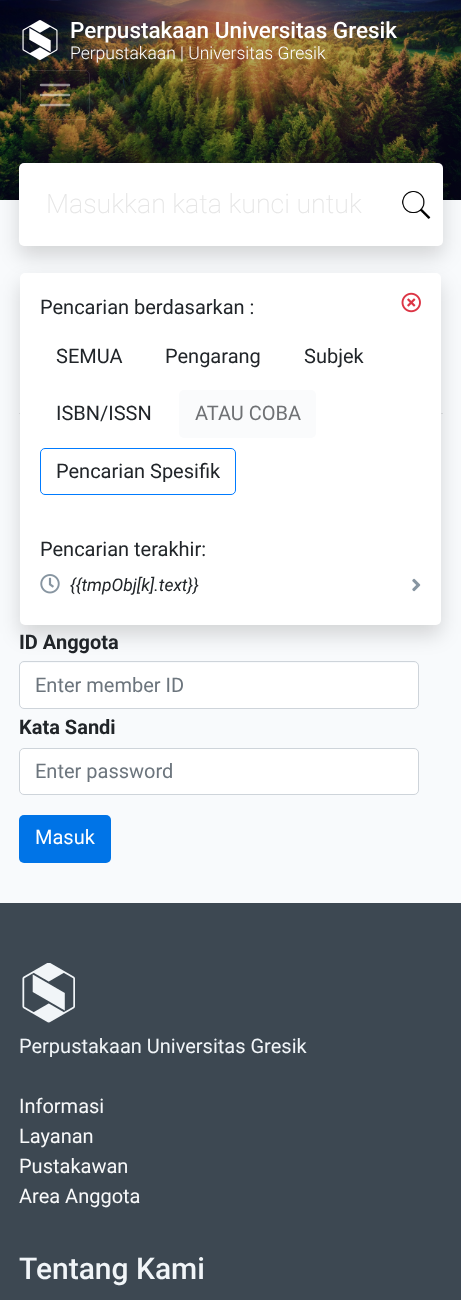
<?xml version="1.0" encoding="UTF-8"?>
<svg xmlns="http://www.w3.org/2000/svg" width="461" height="1300">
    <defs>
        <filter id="blur1" x="-50%" y="-200%" width="200%" height="500%"><feGaussianBlur stdDeviation="10"/></filter>
    </defs>
    <rect width="100%" height="100%" fill="#F8FAFC"/>
    <image x="0" y="0" width="461" height="200" href="img_01.png"/>
    <image x="22" y="20" width="36" height="40" href="img_02.png"/>
    <text x="70" y="38" font-family="Roboto" font-size="22.5" font-weight="500" fill="#FFFFFF">Perpustakaan Universitas Gresik</text>
    <text x="70" y="59" font-family="Roboto" font-size="17.5" font-weight="300" fill="#FFFFFF">Perpustakaan | Universitas Gresik</text>
    <rect x="20.5" y="70.5" width="69" height="49" rx="4.5" fill="none" stroke="#FFFFFF" stroke-opacity="0.1"/>
    <path d="M 41 85 H 69 M 41 95 H 69 M 41 105 H 69" fill="none" stroke="#FFFFFF" stroke-opacity="0.5" stroke-width="2.5" stroke-linecap="round"/>
    <rect x="19" y="173" width="424" height="83" rx="5" fill="#000000" fill-opacity="0.15" filter="url(#blur1)"/>
    <rect x="19" y="163" width="424" height="83" rx="5" fill="#FFFFFF"/>
    <image x="402" y="191" width="29" height="28" href="img_03.png"/>
    <text x="46" y="213" font-family="Roboto" font-size="26.75" font-weight="200" fill="#E6E6E6">Masukkan kata kunci untuk</text>
    <rect x="19" y="413" width="424" height="1" fill="#DFE1E3"/>
    <rect x="20" y="663" width="398" height="45" rx="4" fill="#FFFFFF"/>
    <rect x="19.5" y="661.5" width="399" height="47" rx="4.5" fill="none" stroke="#CED4DA"/>
    <rect x="20" y="283" width="421" height="352" rx="5" fill="#000000" fill-opacity="0.15" filter="url(#blur1)"/>
    <rect x="20" y="273" width="421" height="352" rx="5" fill="#FFFFFF"/>
    <text x="40" y="314" font-family="Roboto" font-size="20" fill="#212529">Pencarian berdasarkan :</text>
    <image x="401" y="292" width="20" height="21" href="img_04.png"/>
    <text x="56" y="363" font-family="Roboto" font-size="20" fill="#212529">SEMUA</text>
    <text x="165" y="363" font-family="Roboto" font-size="20" fill="#212529">Pengarang</text>
    <text x="304" y="363" font-family="Roboto" font-size="20" fill="#212529">Subjek</text>
    <text x="56" y="420" font-family="Roboto" font-size="20" fill="#212529">ISBN/ISSN</text>
    <rect x="179" y="390" width="137" height="48" rx="5" fill="#FAFBFC"/>
    <text x="195" y="420" font-family="Roboto" font-size="20" fill="#6F7174">ATAU COBA</text>
    <rect x="40.5" y="448.5" width="195" height="46" rx="4.5" fill="none" stroke="#007BFF"/>
    <text x="56" y="478" font-family="Roboto" font-size="20" fill="#212529">Pencarian Spesifik</text>
    <text x="40" y="556" font-family="Roboto" font-size="20" fill="#212529">Pencarian terakhir:</text>
    <image x="40" y="574" width="20" height="20" href="img_05.png"/>
    <text x="70" y="591" font-family="Roboto" font-size="17.5" font-style="italic" fill="#212529">{{tmpObj[k].text}}</text>
    <image x="412" y="578" width="9" height="14" href="img_06.png"/>
    <text x="19" y="649" font-family="Roboto" font-size="20" font-weight="700" fill="#212529">ID Anggota</text>
    <text x="35" y="692" font-family="Roboto" font-size="20" fill="#6C757D">Enter member ID</text>
    <text x="19" y="734" font-family="Roboto" font-size="20" font-weight="700" fill="#212529">Kata Sandi</text>
    <rect x="19.5" y="748.5" width="399" height="46" rx="4.5" fill="#FFFFFF" stroke="#CED4DA"/>
    <text x="35" y="778" font-family="Roboto" font-size="20" fill="#6C757D">Enter password</text>
    <rect x="19" y="815" width="92" height="48" rx="5" fill="#0074E7"/>
    <text x="35" y="844" font-family="Roboto" font-size="20" fill="#FFFFFF">Masuk</text>
    <rect x="0" y="903" width="461" height="397" fill="#3D4852"/>
    <image x="22" y="963" width="53" height="60" href="img_07.png"/>
    <text x="19" y="1053" font-family="Roboto" font-size="20" fill="#F1F5F8">Perpustakaan Universitas Gresik</text>
    <text font-family="Roboto" font-size="20" fill="#F8F9FA">
        <tspan x="19" y="1113">Informasi</tspan>
        <tspan x="19" y="1143">Layanan</tspan>
        <tspan x="19" y="1173">Pustakawan</tspan>
        <tspan x="19" y="1203">Area Anggota</tspan>
    </text>
    <text x="19" y="1279" font-family="Roboto" font-size="30" font-weight="500" fill="#F1F5F8">Tentang Kami</text>
</svg>
